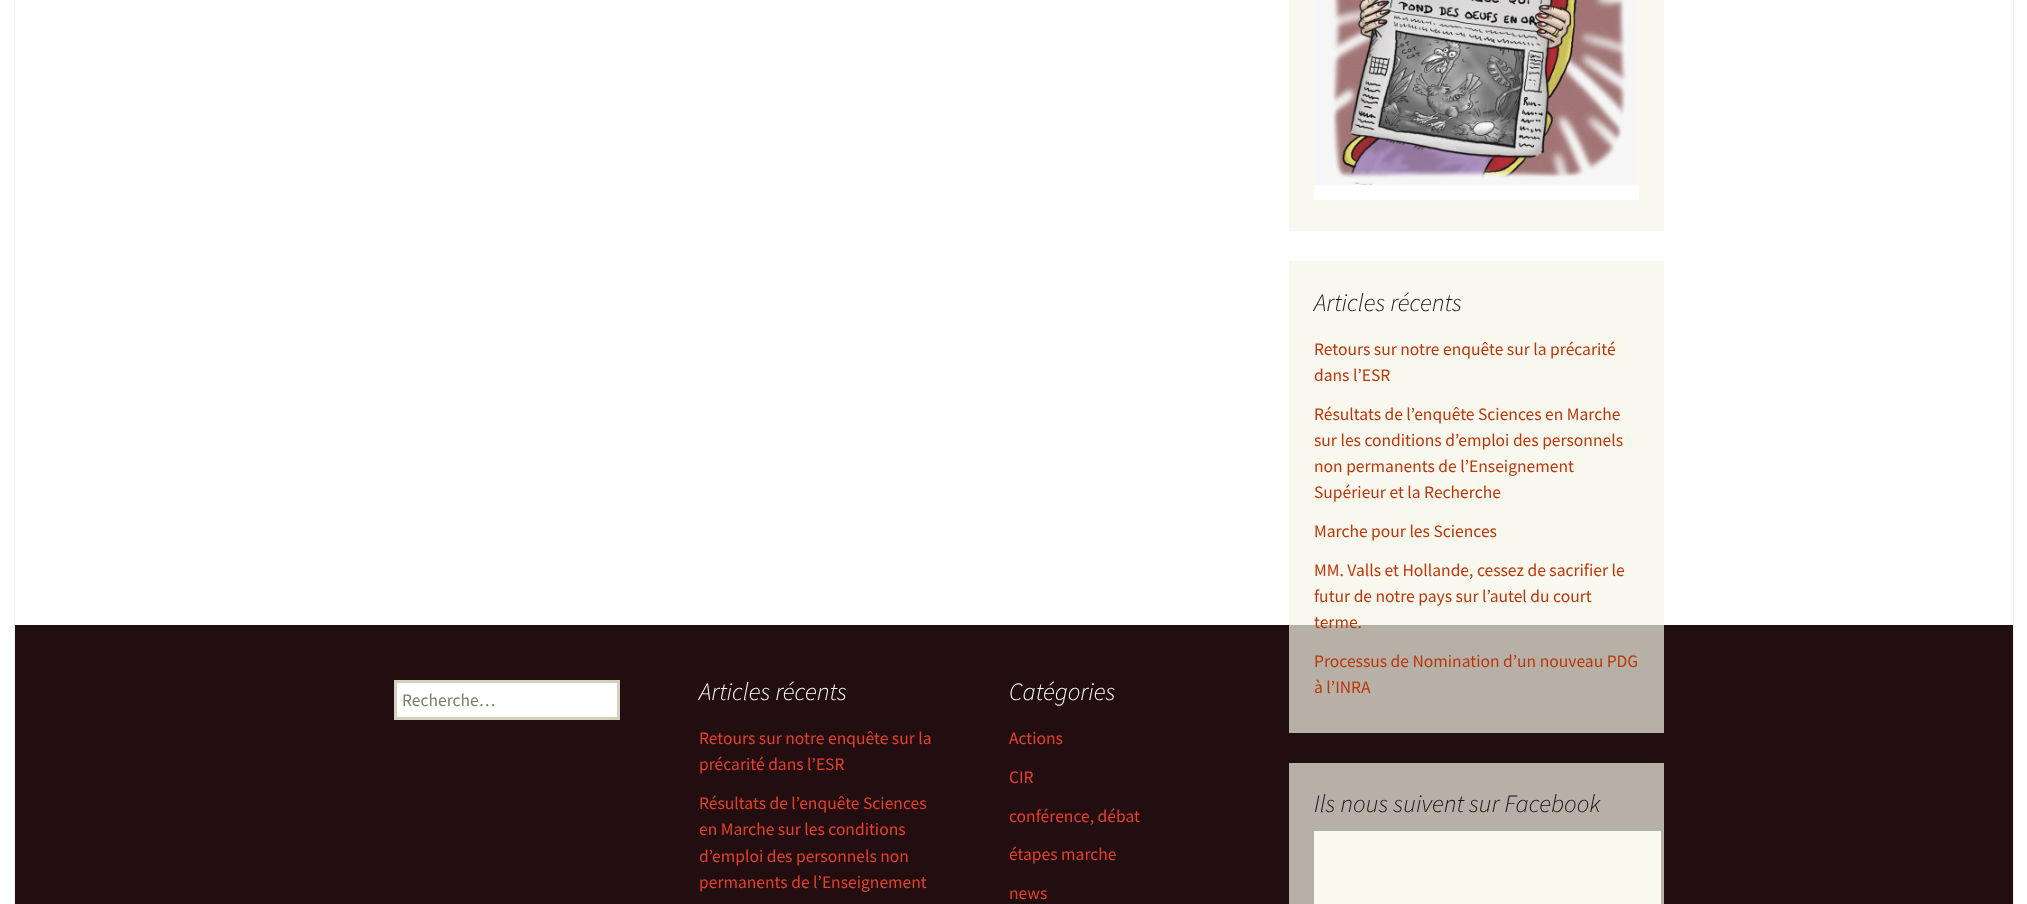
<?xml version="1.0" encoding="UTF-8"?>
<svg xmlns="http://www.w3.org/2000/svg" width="2027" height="904">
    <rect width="100%" height="100%" fill="#FFFFFF"/>
    <rect x="1289" y="261" width="375" height="364" fill="#F9F8EE"/>
    <rect x="2013" y="0" width="1" height="904" fill="#F2F2F2"/>
    <rect x="14" y="0" width="1" height="904" fill="#F2F2F2"/>
    <rect x="15" y="625" width="1998" height="279" fill="#220E10"/>
    <rect x="1289" y="625" width="375" height="108" fill="#B7B0A7"/>
    <rect x="395.5" y="681.5" width="223" height="37" fill="#FFFFFF" stroke="#D4D0BA" stroke-width="3"/>
    <text x="402" y="706" font-family="Source Sans Pro" font-size="17.5" fill="#7D7B6D">Recherche…</text>
    <text x="699" y="700" font-family="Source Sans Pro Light" font-size="25" font-weight="300" font-style="italic" fill="#FFFFFF">Articles récents</text>
    <text font-family="Source Sans Pro" font-size="17.5" fill="#E6402A">
        <tspan x="699" y="744">Retours sur notre enquête sur la</tspan>
        <tspan x="699" y="770">précarité dans l’ESR</tspan>
    </text>
    <text font-family="Source Sans Pro" font-size="17.5" fill="#E6402A">
        <tspan x="699" y="809">Résultats de l’enquête Sciences</tspan>
        <tspan x="699" y="835">en Marche sur les conditions</tspan>
        <tspan x="699" y="862">d’emploi des personnels non</tspan>
        <tspan x="699" y="888">permanents de l’Enseignement</tspan>
    </text>
    <text x="1009" y="700" font-family="Source Sans Pro Light" font-size="25" font-weight="300" font-style="italic" fill="#FFFFFF">Catégories</text>
    <text x="1009" y="744" font-family="Source Sans Pro" font-size="17.5" fill="#E6402A">Actions</text>
    <text x="1009" y="783" font-family="Source Sans Pro" font-size="17.5" fill="#E6402A">CIR</text>
    <text x="1009" y="822" font-family="Source Sans Pro" font-size="17.5" fill="#E6402A">conférence, débat</text>
    <text x="1009" y="860" font-family="Source Sans Pro" font-size="17.5" fill="#E6402A">étapes marche</text>
    <text x="1009" y="899" font-family="Source Sans Pro" font-size="17.5" fill="#E6402A">news</text>
    <rect x="1289" y="0" width="375" height="231" fill="#F9F8EE"/>
    <image x="1313" y="0" width="326" height="200" href="img_01.png"/>
    <text x="1314" y="311" font-family="Source Sans Pro Light" font-size="25" font-weight="300" font-style="italic" fill="#141412">Articles récents</text>
    <text font-family="Source Sans Pro" font-size="17.5" fill="#BC360A">
        <tspan x="1314" y="355">Retours sur notre enquête sur la précarité</tspan>
        <tspan x="1314" y="381">dans l’ESR</tspan>
    </text>
    <text font-family="Source Sans Pro" font-size="17.5" fill="#BC360A">
        <tspan x="1314" y="420">Résultats de l’enquête Sciences en Marche</tspan>
        <tspan x="1314" y="446">sur les conditions d’emploi des personnels</tspan>
        <tspan x="1314" y="472">non permanents de l’Enseignement</tspan>
        <tspan x="1314" y="498">Supérieur et la Recherche</tspan>
    </text>
    <text x="1314" y="537" font-family="Source Sans Pro" font-size="17.5" fill="#BC360A">Marche pour les Sciences</text>
    <text font-family="Source Sans Pro" font-size="17.5" fill="#BC360A">
        <tspan x="1314" y="576">MM. Valls et Hollande, cessez de sacrifier le</tspan>
        <tspan x="1314" y="602">futur de notre pays sur l’autel du court</tspan>
        <tspan x="1314" y="628">terme.</tspan>
    </text>
    <text font-family="Source Sans Pro" font-size="17.5" fill="#BC360A">
        <tspan x="1314" y="667">Processus de Nomination d’un nouveau PDG</tspan>
        <tspan x="1314" y="693">à l’INRA</tspan>
    </text>
    <rect x="1289" y="763" width="375" height="141" fill="#B7B0A7"/>
    <text x="1314" y="812" font-family="Source Sans Pro Light" font-size="25" font-weight="300" font-style="italic" fill="#141412">Ils nous suivent sur Facebook</text>
    <rect x="1314" y="831" width="347" height="73" fill="#F9F9EE"/>
</svg>
